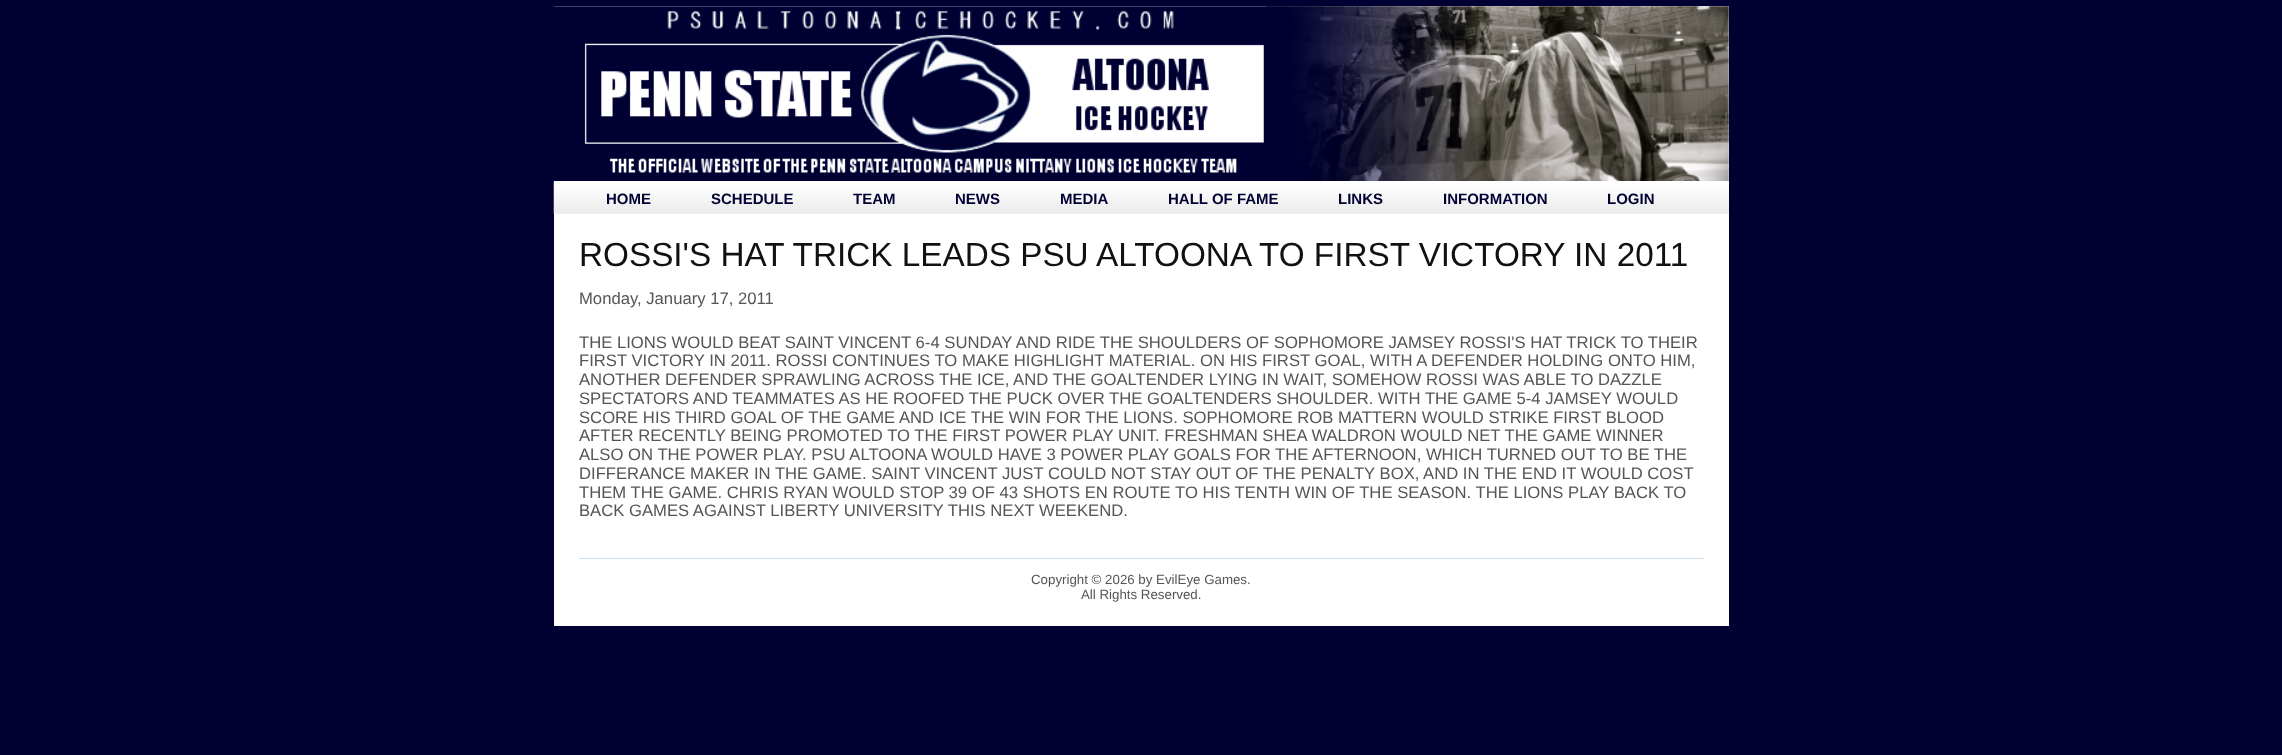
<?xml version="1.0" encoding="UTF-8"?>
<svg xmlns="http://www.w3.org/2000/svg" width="2282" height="755">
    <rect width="100%" height="100%" fill="#000033"/>
    <rect x="554" y="6" width="1175" height="620" fill="#FFFFFF"/>
    <image x="1266" y="6" width="463" height="175" href="img_01.png"/>
    <image x="554" y="6" width="922" height="175" href="img_02.png"/>
    <image x="553" y="181" width="1176" height="33" href="img_03.png"/>
    <text x="606" y="204" font-family="Liberation Sans" font-size="15" font-weight="700" fill="#000033">HOME</text>
    <text x="711" y="204" font-family="Liberation Sans" font-size="15" font-weight="700" fill="#000033">SCHEDULE</text>
    <text x="853" y="204" font-family="Liberation Sans" font-size="15" font-weight="700" fill="#000033">TEAM</text>
    <text x="955" y="204" font-family="Liberation Sans" font-size="15" font-weight="700" fill="#000033">NEWS</text>
    <text x="1060" y="204" font-family="Liberation Sans" font-size="15" font-weight="700" fill="#000033">MEDIA</text>
    <text x="1168" y="204" font-family="Liberation Sans" font-size="15" font-weight="700" fill="#000033">HALL OF FAME</text>
    <text x="1338" y="204" font-family="Liberation Sans" font-size="15" font-weight="700" fill="#000033">LINKS</text>
    <text x="1443" y="204" font-family="Liberation Sans" font-size="15" font-weight="700" fill="#000033">INFORMATION</text>
    <text x="1607" y="204" font-family="Liberation Sans" font-size="15" font-weight="700" fill="#000033">LOGIN</text>
    <text x="579" y="266" font-family="Liberation Sans" font-size="33.3" fill="#111111">ROSSI'S HAT TRICK LEADS PSU ALTOONA TO FIRST VICTORY IN 2011</text>
    <text x="579" y="304" font-family="Liberation Sans" font-size="16.67" fill="#555555">Monday, January 17, 2011</text>
    <text font-family="Liberation Sans" font-size="16.67" fill="#555555">
        <tspan x="579" y="348">THE LIONS WOULD BEAT SAINT VINCENT 6-4 SUNDAY AND RIDE THE SHOULDERS OF SOPHOMORE JAMSEY ROSSI'S HAT TRICK TO THEIR</tspan>
        <tspan x="579" y="366">FIRST VICTORY IN 2011. ROSSI CONTINUES TO MAKE HIGHLIGHT MATERIAL. ON HIS FIRST GOAL, WITH A DEFENDER HOLDING ONTO HIM,</tspan>
        <tspan x="579" y="385">ANOTHER DEFENDER SPRAWLING ACROSS THE ICE, AND THE GOALTENDER LYING IN WAIT, SOMEHOW ROSSI WAS ABLE TO DAZZLE</tspan>
        <tspan x="579" y="404">SPECTATORS AND TEAMMATES AS HE ROOFED THE PUCK OVER THE GOALTENDERS SHOULDER.</tspan>
    </text>
    <text x="1378" y="404" font-family="Liberation Sans" font-size="16.67" fill="#555555">WITH THE GAME 5-4 JAMSEY WOULD</text>
    <text font-family="Liberation Sans" font-size="16.67" fill="#555555">
        <tspan x="579" y="423">SCORE HIS THIRD GOAL OF THE GAME AND ICE THE WIN FOR THE LIONS. SOPHOMORE ROB MATTERN WOULD STRIKE FIRST BLOOD</tspan>
        <tspan x="579" y="441">AFTER RECENTLY BEING PROMOTED TO THE FIRST POWER PLAY UNIT. FRESHMAN SHEA WALDRON WOULD NET THE GAME WINNER</tspan>
        <tspan x="579" y="460">ALSO ON THE POWER PLAY. PSU ALTOONA WOULD HAVE 3 POWER PLAY GOALS FOR THE AFTERNOON, WHICH TURNED OUT TO BE THE</tspan>
        <tspan x="579" y="479">DIFFERANCE MAKER IN THE GAME. SAINT VINCENT JUST COULD NOT STAY OUT OF THE PENALTY BOX, AND IN THE END IT WOULD COST</tspan>
        <tspan x="579" y="498">THEM THE GAME. CHRIS RYAN WOULD STOP 39 OF 43 SHOTS EN ROUTE TO HIS TENTH WIN OF THE SEASON. THE LIONS PLAY BACK TO</tspan>
        <tspan x="579" y="516">BACK GAMES AGAINST LIBERTY UNIVERSITY THIS NEXT WEEKEND.</tspan>
    </text>
    <rect x="579" y="558" width="1125" height="1" fill="#C9E0ED"/>
    <text x="1031" y="584" font-family="Liberation Sans" font-size="13.3" fill="#555555">Copyright © 2026 by EvilEye Games.</text>
    <text x="1081" y="599" font-family="Liberation Sans" font-size="13.3" fill="#555555">All Rights Reserved.</text>
</svg>
